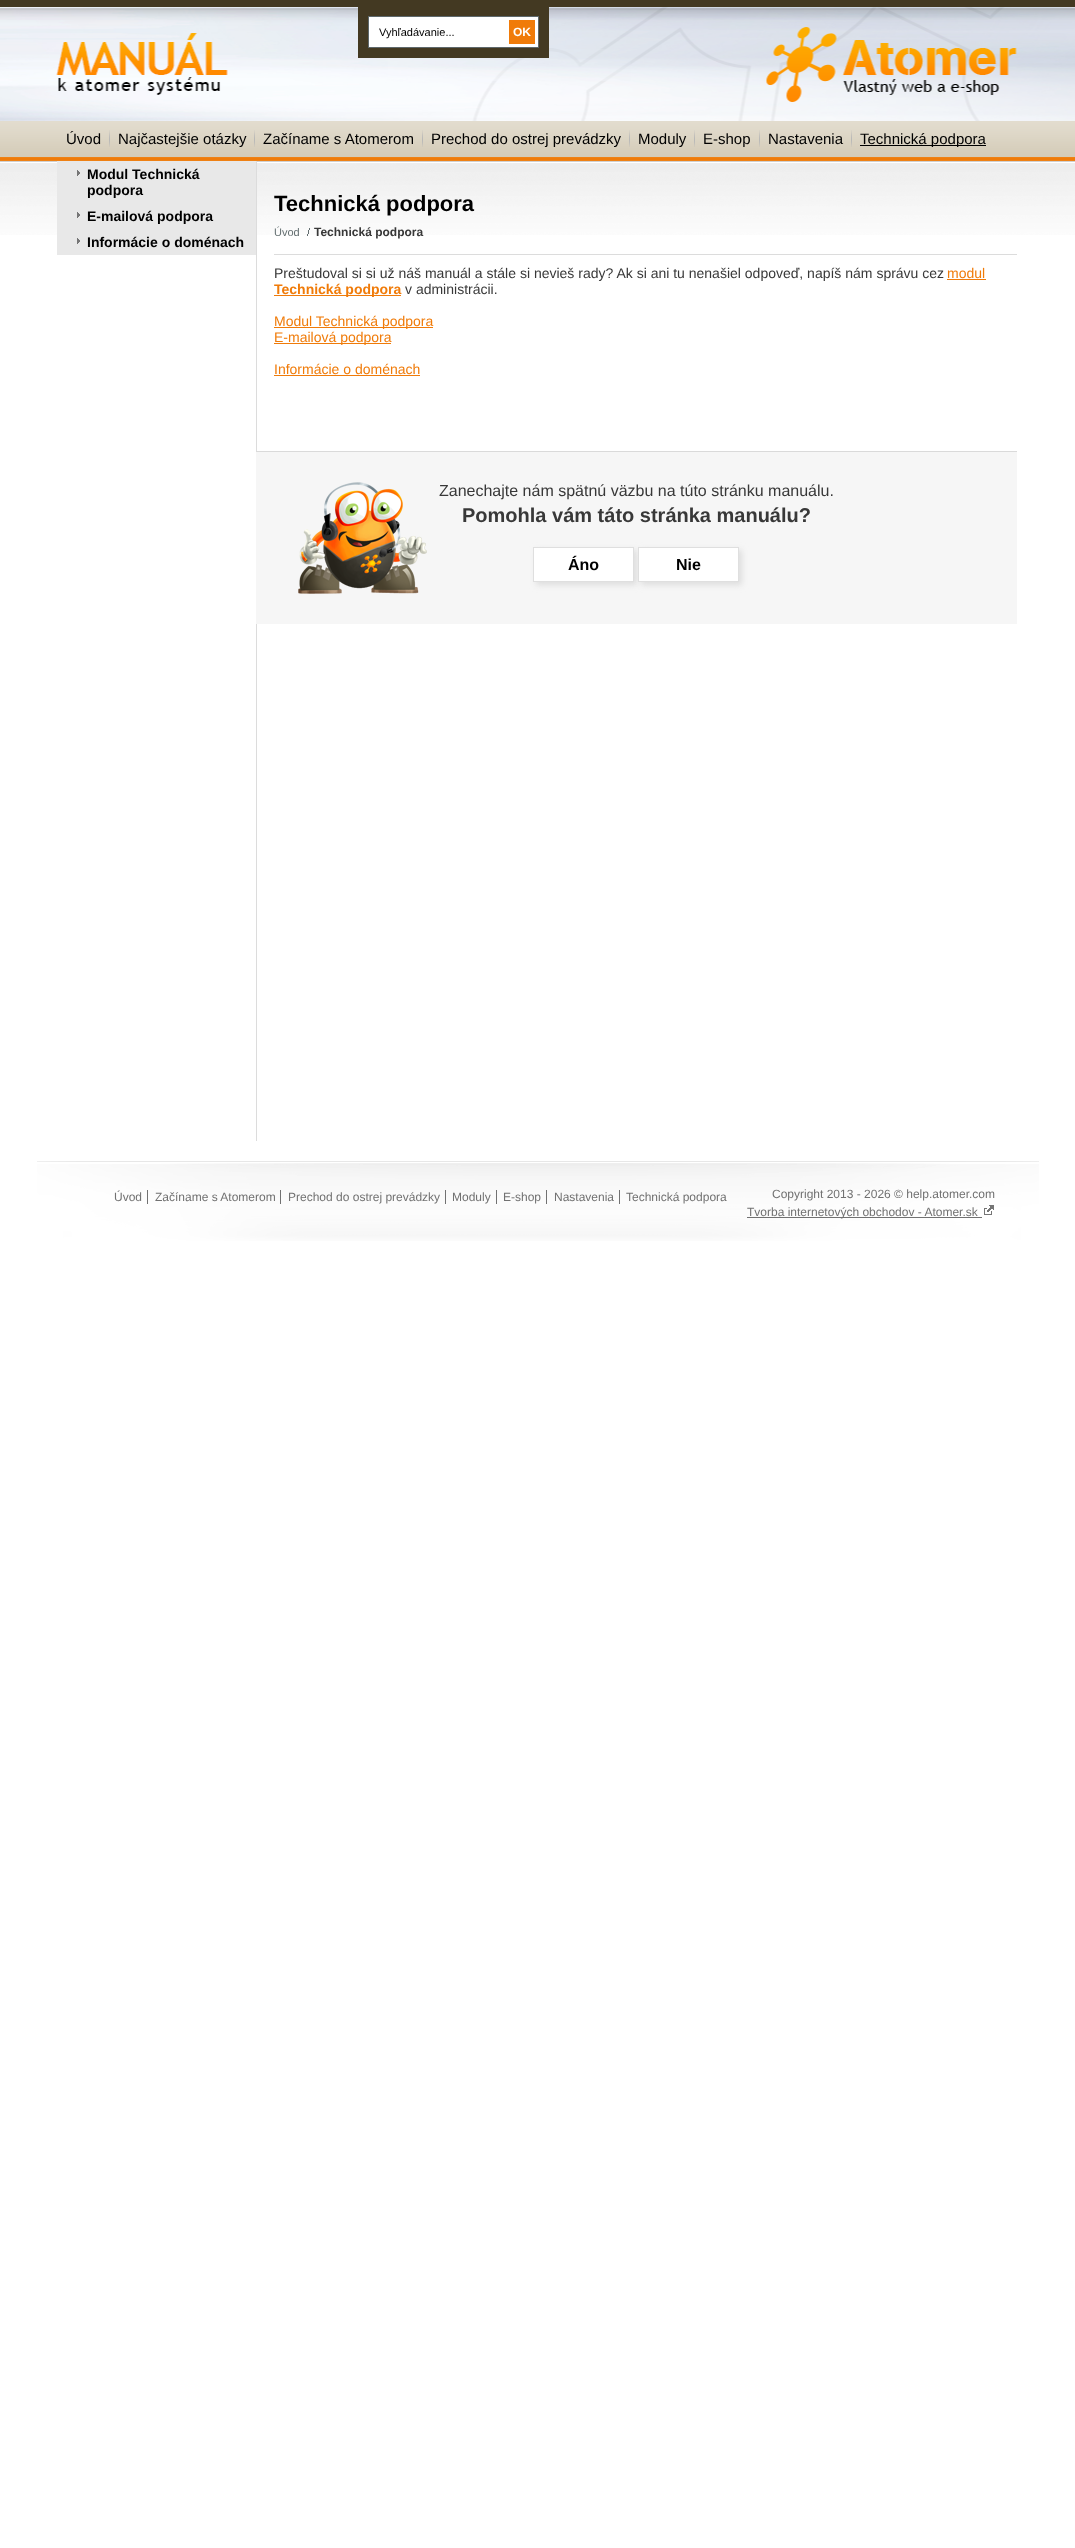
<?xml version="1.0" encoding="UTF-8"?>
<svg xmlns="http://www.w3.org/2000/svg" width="1075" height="2548">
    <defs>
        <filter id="blur1" x="-50%" y="-200%" width="200%" height="500%"><feGaussianBlur stdDeviation="3"/></filter>
    </defs>
    <rect width="100%" height="100%" fill="#FFFFFF"/>
    <rect x="0" y="0" width="1075" height="7" fill="#433922"/>
    <image x="0" y="161" width="1075" height="74" href="img_01.png"/>
    <image x="0" y="7" width="1075" height="114" href="img_02.png"/>
    <rect x="358" y="7" width="191" height="51" fill="#433922"/>
    <rect x="368.5" y="16.5" width="170" height="31" fill="#FFFFFF" stroke="#5E686B"/>
    <text x="379" y="36" font-family="Liberation Sans" font-size="11" fill="#000000">Vyhľadávanie...</text>
    <rect x="509" y="20" width="26" height="24" fill="#F07B09"/>
    <text x="513" y="36" font-family="Liberation Sans" font-size="12" font-weight="700" fill="#FFFFFF">OK</text>
    <image x="0" y="121" width="1075" height="40" href="img_03.png"/>
    <text x="66" y="144" font-family="Liberation Sans" font-size="15" fill="#000000">Úvod</text>
    <image x="109" y="130" width="1" height="17" href="img_04.png"/>
    <text x="118" y="144" font-family="Liberation Sans" font-size="15" fill="#000000">Najčastejšie otázky</text>
    <image x="254" y="130" width="1" height="17" href="img_04.png"/>
    <text x="263" y="144" font-family="Liberation Sans" font-size="15" fill="#000000">Začíname s Atomerom</text>
    <image x="422" y="130" width="1" height="17" href="img_04.png"/>
    <text x="431" y="144" font-family="Liberation Sans" font-size="15" fill="#000000">Prechod do ostrej prevádzky</text>
    <image x="629" y="130" width="1" height="17" href="img_04.png"/>
    <text x="638" y="144" font-family="Liberation Sans" font-size="15" fill="#000000">Moduly</text>
    <image x="694" y="130" width="1" height="17" href="img_04.png"/>
    <text x="703" y="144" font-family="Liberation Sans" font-size="15" fill="#000000">E-shop</text>
    <image x="759" y="130" width="1" height="17" href="img_04.png"/>
    <text x="768" y="144" font-family="Liberation Sans" font-size="15" fill="#000000">Nastavenia</text>
    <image x="851" y="130" width="1" height="17" href="img_04.png"/>
    <rect x="860" y="145" width="126" height="1" fill="#000000"/>
    <text x="860" y="144" font-family="Liberation Sans" font-size="15" fill="#000000">Technická podpora</text>
    <rect x="256" y="161" width="1" height="980" fill="#DCDCDC"/>
    <rect x="57" y="161" width="199" height="94" fill="#E8E8E8"/>
    <image x="77" y="170" width="3" height="6" href="img_05.png"/>
    <text font-family="Liberation Sans" font-size="14" font-weight="700" fill="#000000">
        <tspan x="87" y="179">Modul Technická</tspan>
        <tspan x="87" y="195">podpora</tspan>
    </text>
    <image x="77" y="212" width="3" height="6" href="img_05.png"/>
    <text x="87" y="221" font-family="Liberation Sans" font-size="14" font-weight="700" fill="#000000">E-mailová podpora</text>
    <image x="77" y="238" width="3" height="6" href="img_05.png"/>
    <text x="87" y="247" font-family="Liberation Sans" font-size="14" font-weight="700" fill="#000000">Informácie o doménach</text>
    <text x="274" y="211" font-family="Liberation Sans" font-size="22" font-weight="700" fill="#000000">Technická podpora</text>
    <rect x="274" y="254" width="743" height="1" fill="#DCDCDC"/>
    <text x="274" y="236" font-family="Liberation Sans" font-size="11" fill="#646F71">Úvod</text>
    <image x="307" y="228" width="3" height="8" href="img_06.png"/>
    <text x="314" y="236" font-family="Liberation Sans" font-size="12" font-weight="700" fill="#383838">Technická podpora</text>
    <text x="274" y="278" font-family="Liberation Sans" font-size="14" fill="#383838">Preštudoval si si už náš manuál a stále si nevieš rady? Ak si ani tu nenašiel odpoveď, napíš nám správu cez</text>
    <text x="947" y="278" font-family="Liberation Sans" font-size="14" fill="#F07B09">modul</text>
    <rect x="947" y="279" width="39" height="1" fill="#F07B09"/>
    <rect x="274" y="295" width="127" height="1" fill="#F07B09"/>
    <text x="274" y="294" font-family="Liberation Sans" font-size="14" font-weight="700" fill="#F07B09">Technická podpora</text>
    <text x="405" y="294" font-family="Liberation Sans" font-size="14" fill="#383838">v administrácii.</text>
    <rect x="274" y="327" width="159" height="1" fill="#F07B09"/>
    <text x="274" y="326" font-family="Liberation Sans" font-size="14" fill="#F07B09">Modul Technická podpora</text>
    <rect x="274" y="343" width="117" height="1" fill="#F07B09"/>
    <text x="274" y="342" font-family="Liberation Sans" font-size="14" fill="#F07B09">E-mailová podpora</text>
    <text x="274" y="374" font-family="Liberation Sans" font-size="14" fill="#F07B09">Informácie o doménach</text>
    <rect x="274" y="375" width="146" height="1" fill="#F07B09"/>
    <rect x="256" y="452" width="761" height="172" fill="#F6F6F6"/>
    <image x="298" y="482" width="129" height="112" href="img_07.png"/>
    <rect x="256" y="451" width="761" height="1" fill="#DADADA"/>
    <text x="439" y="496" font-family="Liberation Sans" font-size="16" fill="#383838">Zanechajte nám spätnú väzbu na túto stránku manuálu.</text>
    <text x="462" y="522" font-family="Liberation Sans" font-size="20" font-weight="700" fill="#383838">Pomohla vám táto stránka manuálu?</text>
    <rect x="536" y="550" width="101" height="35" fill="#DDDDDD" filter="url(#blur1)"/>
    <rect x="533.5" y="547.5" width="100" height="34" fill="#FFFFFF" stroke="#DFDFDF"/>
    <text x="568" y="570" font-family="Liberation Sans" font-size="16" font-weight="700" fill="#000000">Áno</text>
    <rect x="641" y="550" width="101" height="35" fill="#DDDDDD" filter="url(#blur1)"/>
    <rect x="638.5" y="547.5" width="100" height="34" fill="#FFFFFF" stroke="#DFDFDF"/>
    <text x="676" y="570" font-family="Liberation Sans" font-size="16" font-weight="700" fill="#000000">Nie</text>
    <image x="37" y="1161" width="1002" height="80" href="img_08.png"/>
    <text x="114" y="1201" font-family="Liberation Sans" font-size="12" fill="#717171">Úvod</text>
    <rect x="147" y="1190" width="1" height="14" fill="#717171"/>
    <text x="155" y="1201" font-family="Liberation Sans" font-size="12" fill="#717171">Začíname s Atomerom</text>
    <rect x="280" y="1190" width="1" height="14" fill="#717171"/>
    <text x="288" y="1201" font-family="Liberation Sans" font-size="12" fill="#717171">Prechod do ostrej prevádzky</text>
    <rect x="445" y="1190" width="1" height="14" fill="#717171"/>
    <text x="452" y="1201" font-family="Liberation Sans" font-size="12" fill="#717171">Moduly</text>
    <rect x="496" y="1190" width="1" height="14" fill="#717171"/>
    <text x="503" y="1201" font-family="Liberation Sans" font-size="12" fill="#717171">E-shop</text>
    <rect x="546" y="1190" width="1" height="14" fill="#717171"/>
    <text x="554" y="1201" font-family="Liberation Sans" font-size="12" fill="#717171">Nastavenia</text>
    <rect x="619" y="1190" width="1" height="14" fill="#717171"/>
    <text x="626" y="1201" font-family="Liberation Sans" font-size="12" fill="#717171">Technická podpora</text>
    <text x="772" y="1198" font-family="Liberation Sans" font-size="12" fill="#717171">Copyright 2013 - 2026 © help.atomer.com</text>
    <rect x="747" y="1217" width="235" height="1" fill="#717171"/>
    <text x="747" y="1216" font-family="Liberation Sans" font-size="12" fill="#717171">Tvorba internetových obchodov - Atomer.sk</text>
    <image x="984" y="1205" width="10" height="10" href="img_09.png"/>
</svg>
